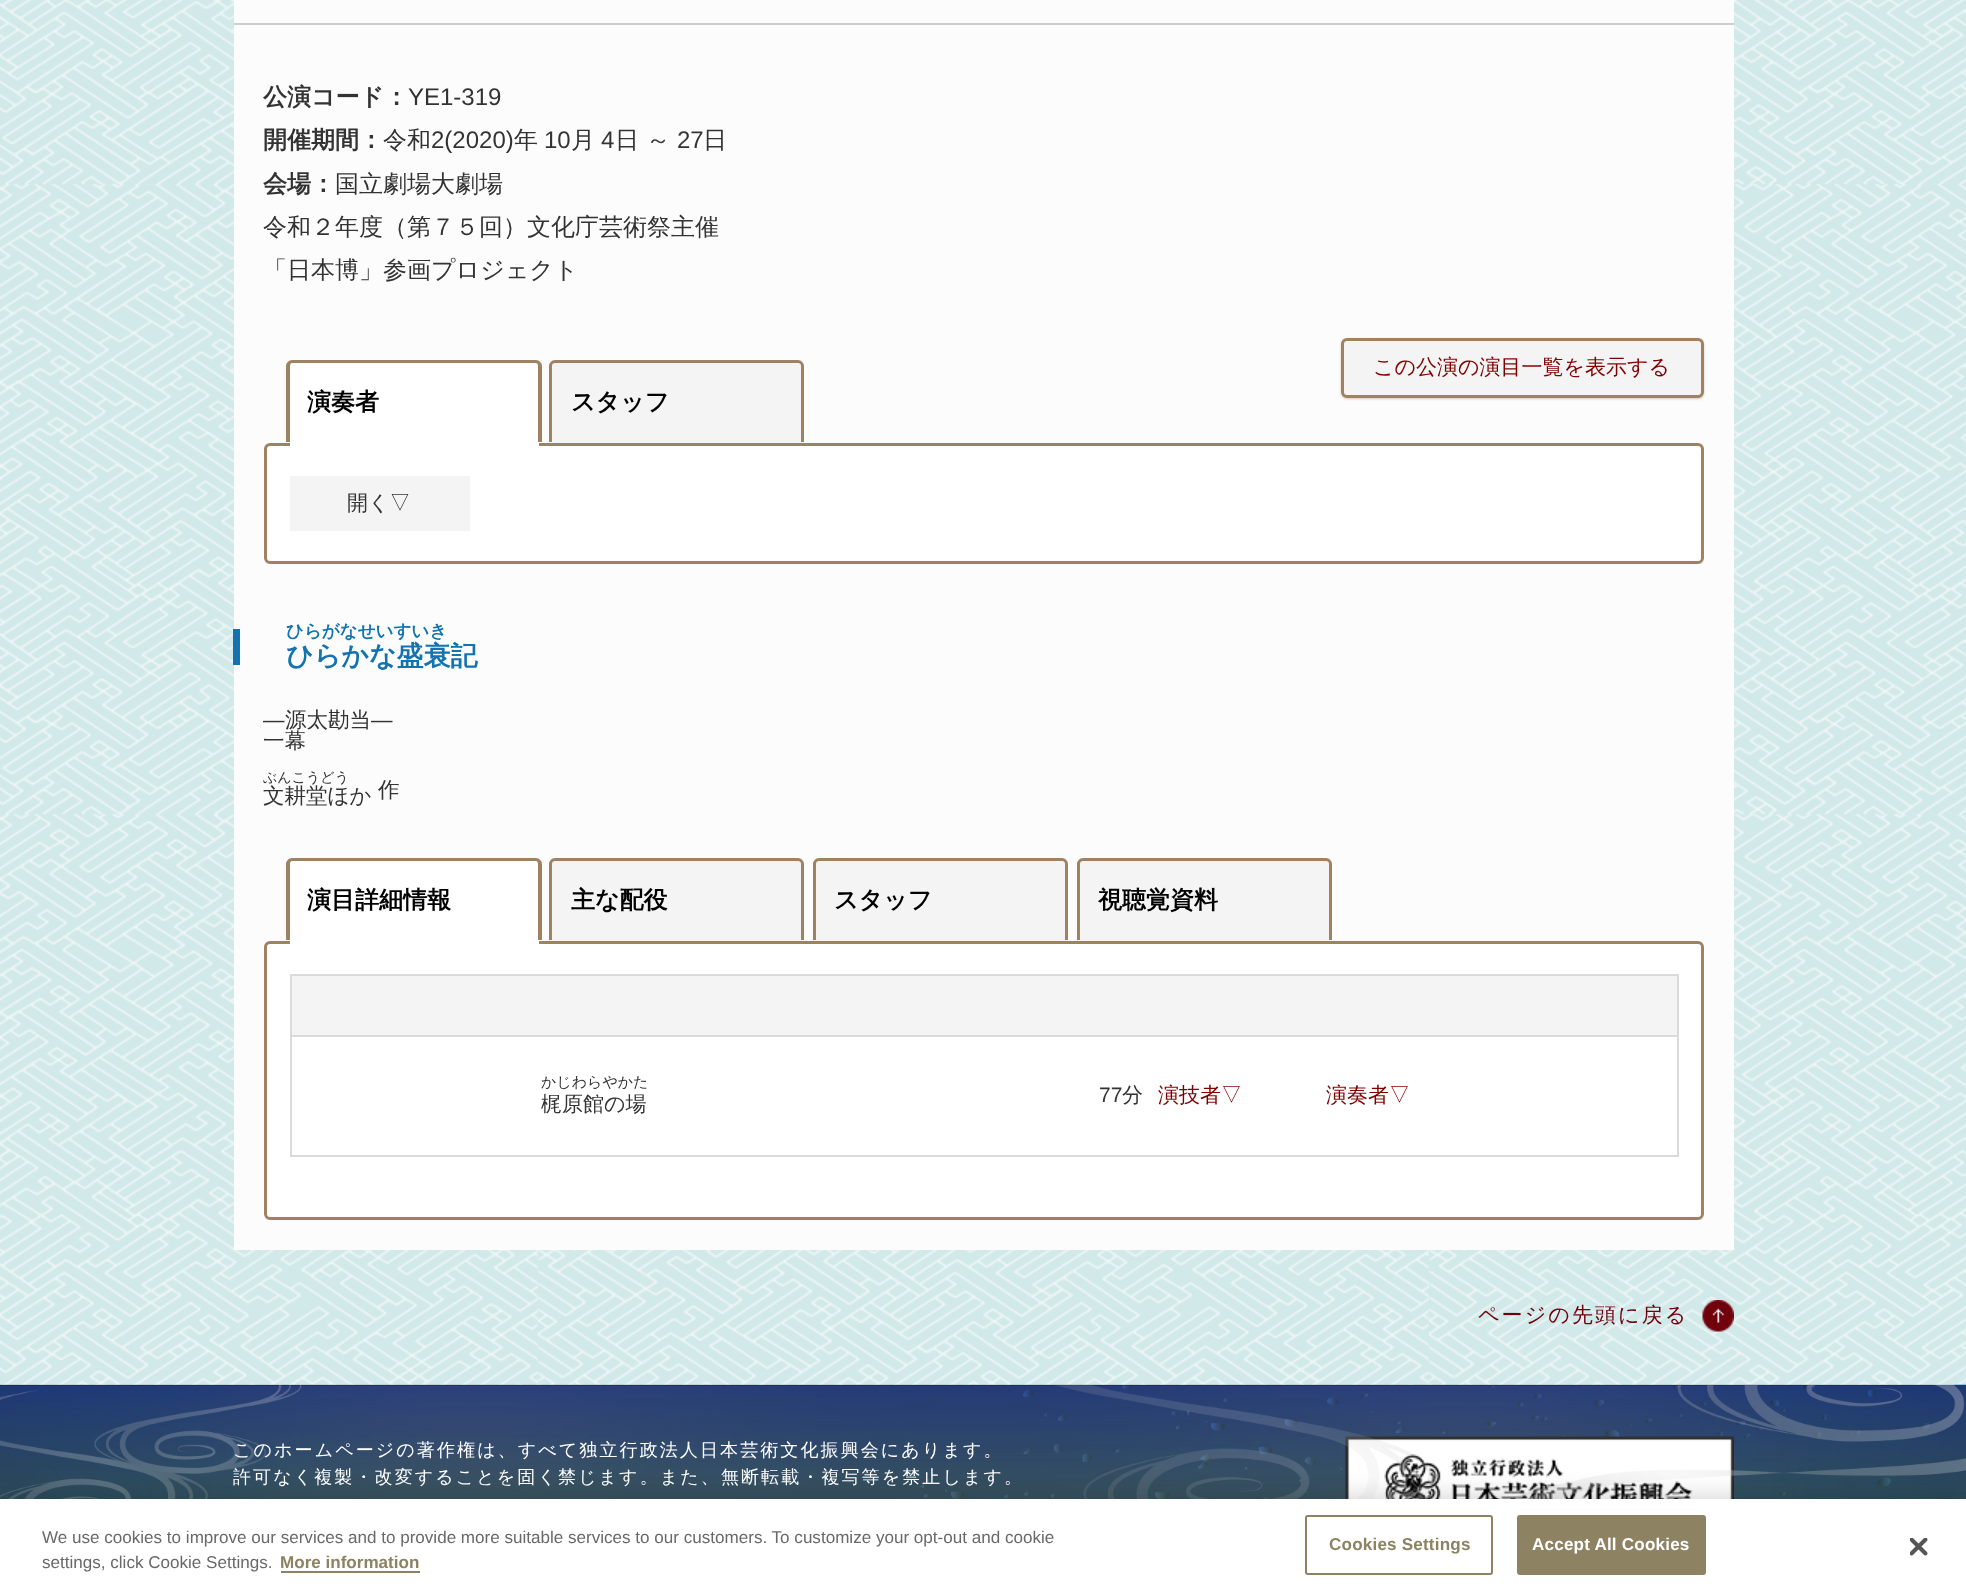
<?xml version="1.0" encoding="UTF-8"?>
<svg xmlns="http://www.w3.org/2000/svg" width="1966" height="1596">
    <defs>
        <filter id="blur1" x="-50%" y="-200%" width="200%" height="500%"><feGaussianBlur stdDeviation="1"/></filter>
        <filter id="blur2" x="-50%" y="-200%" width="200%" height="500%"><feGaussianBlur stdDeviation="13.5"/></filter>
    </defs>
    <rect width="100%" height="100%" fill="#FFFFFF"/>
    <image x="0" y="0" width="1966" height="1385" href="img_01.png"/>
    <rect x="234" y="0" width="1500" height="1250" fill="#FCFCFC"/>
    <rect x="234" y="23" width="1500" height="2" fill="#CDCDCD"/>
    <text x="263" y="105" font-family="WenQuanYi Zen Hei" font-size="24" font-weight="700" fill="#333333">公演コード：</text>
    <text x="408" y="105" font-family="Liberation Sans" font-size="24" fill="#333333">YE1-319</text>
    <text x="263" y="148" font-family="WenQuanYi Zen Hei" font-size="24" font-weight="700" fill="#333333">開催期間：</text>
    <text x="383" y="148" font-family="WenQuanYi Zen Hei" font-size="24" font-weight="500" fill="#333333">令和</text>
    <text x="431" y="148" font-family="Liberation Sans" font-size="24" fill="#333333">2(2020)</text>
    <text x="514" y="148" font-family="WenQuanYi Zen Hei" font-size="24" font-weight="500" fill="#333333">年</text>
    <text x="544" y="148" font-family="Liberation Sans" font-size="24" fill="#333333">10</text>
    <text x="571" y="148" font-family="WenQuanYi Zen Hei" font-size="24" font-weight="500" fill="#333333">月</text>
    <text x="601" y="148" font-family="Liberation Sans" font-size="24" fill="#333333">4</text>
    <text x="615" y="148" font-family="WenQuanYi Zen Hei" font-size="24" font-weight="500" fill="#333333">日 ～</text>
    <text x="677" y="148" font-family="Liberation Sans" font-size="24" fill="#333333">27</text>
    <text x="703" y="148" font-family="WenQuanYi Zen Hei" font-size="24" font-weight="500" fill="#333333">日</text>
    <text x="263" y="192" font-family="WenQuanYi Zen Hei" font-size="24" font-weight="700" fill="#333333">会場：</text>
    <text x="335" y="192" font-family="WenQuanYi Zen Hei" font-size="24" font-weight="500" fill="#333333">国立劇場大劇場</text>
    <text font-family="WenQuanYi Zen Hei" font-size="24" font-weight="500" fill="#333333">
        <tspan x="263" y="235">令和２年度（第７５回）文化庁芸術祭主催</tspan>
        <tspan x="263" y="278">「日本博」参画プロジェクト</tspan>
    </text>
    <rect x="1341" y="339" width="363" height="60" rx="6" fill="#D2C9BC" filter="url(#blur1)"/>
    <rect x="1342.5" y="339.5" width="360" height="57" rx="4.5" fill="#F4F4F4" stroke="#9F8261" stroke-width="3"/>
    <text x="1373" y="374" font-family="WenQuanYi Zen Hei" font-size="21" font-weight="500" fill="#800000">この公演の演目一覧を表示する</text>
    <path d="M 293 360 H 536 C 539.5 360 542 362.5 542 366 V 443 H 287 V 366 C 287 362.5 289.5 360 293 360 Z" fill="#FFFFFF"/>
    <path d="M 292 360 H 536 C 539 360 542 363 542 366 V 442 H 286 V 366 C 286 363 289 360 292 360 Z M 292 363 H 536 C 537 363 538 364 538 366 V 442 H 290 V 366 C 290 364 291 363 292 363 Z" fill="#9F8261" fill-rule="evenodd"/>
    <text x="307" y="410" font-family="WenQuanYi Zen Hei" font-size="24" font-weight="700" fill="#000000">演奏者</text>
    <rect x="265.5" y="444.5" width="1437" height="118" rx="4.5" fill="#FFFFFF" stroke="#9F8261" stroke-width="3"/>
    <rect x="290" y="443" width="249" height="3" fill="#FFFFFF"/>
    <path d="M 555 360 H 798 C 801.5 360 804 362.5 804 366 V 443 H 549 V 366 C 549 362.5 551.5 360 555 360 Z" fill="#F4F4F4"/>
    <path d="M 555 360 H 798 C 801 360 804 363 804 366 V 442 H 549 V 366 C 549 363 552 360 555 360 Z M 555 363 H 798 C 800 363 801 364 801 366 V 442 H 552 V 366 C 552 364 553 363 555 363 Z" fill="#9F8261" fill-rule="evenodd"/>
    <text x="571" y="410" font-family="WenQuanYi Zen Hei" font-size="24" font-weight="700" fill="#000000">スタッフ</text>
    <rect x="290" y="476" width="180" height="55" fill="#F4F4F4"/>
    <text x="347" y="510" font-family="WenQuanYi Zen Hei" font-size="21" font-weight="500" fill="#333333">開く▽</text>
    <rect x="233" y="629" width="7" height="36" fill="#1273B0"/>
    <text x="286" y="637" font-family="WenQuanYi Zen Hei" font-size="17.5" font-weight="700" fill="#1273B0">ひらがなせいすいき</text>
    <text x="286" y="665" font-family="WenQuanYi Zen Hei" font-size="27" font-weight="700" fill="#1273B0">ひらかな盛衰記</text>
    <text x="263" y="727" font-family="Liberation Sans" font-size="21.5" fill="#333333">―</text>
    <text x="285" y="727" font-family="WenQuanYi Zen Hei" font-size="21.5" font-weight="500" fill="#333333">源太勘当</text>
    <text x="371" y="727" font-family="Liberation Sans" font-size="21.5" fill="#333333">―</text>
    <text x="263" y="748" font-family="WenQuanYi Zen Hei" font-size="21.5" font-weight="500" fill="#333333">一幕</text>
    <text x="263" y="782" font-family="WenQuanYi Zen Hei" font-size="14" font-weight="500" fill="#333333">ぶんこうどう</text>
    <text x="263" y="803" font-family="WenQuanYi Zen Hei" font-size="21.5" font-weight="500" fill="#333333">文耕堂ほか</text>
    <text x="378" y="797" font-family="WenQuanYi Zen Hei" font-size="21.5" font-weight="500" fill="#333333">作</text>
    <path d="M 293 858 H 536 C 539.5 858 542 860.5 542 864 V 941 H 287 V 864 C 287 860.5 289.5 858 293 858 Z" fill="#FFFFFF"/>
    <path d="M 292 858 H 536 C 539 858 542 861 542 864 V 940 H 286 V 864 C 286 861 289 858 292 858 Z M 292 861 H 536 C 537 861 538 862 538 864 V 940 H 290 V 864 C 290 862 291 861 292 861 Z" fill="#9F8261" fill-rule="evenodd"/>
    <text x="307" y="908" font-family="WenQuanYi Zen Hei" font-size="24" font-weight="700" fill="#000000">演目詳細情報</text>
    <rect x="265.5" y="942.5" width="1437" height="276" rx="4.5" fill="#FFFFFF" stroke="#9F8261" stroke-width="3"/>
    <rect x="290" y="941" width="249" height="3" fill="#FFFFFF"/>
    <path d="M 555 858 H 798 C 801.5 858 804 860.5 804 864 V 941 H 549 V 864 C 549 860.5 551.5 858 555 858 Z" fill="#F4F4F4"/>
    <path d="M 555 858 H 798 C 801 858 804 861 804 864 V 940 H 549 V 864 C 549 861 552 858 555 858 Z M 555 861 H 798 C 800 861 801 862 801 864 V 940 H 552 V 864 C 552 862 553 861 555 861 Z" fill="#9F8261" fill-rule="evenodd"/>
    <text x="571" y="908" font-family="WenQuanYi Zen Hei" font-size="24" font-weight="700" fill="#000000">主な配役</text>
    <path d="M 819 858 H 1062 C 1065.5 858 1068 860.5 1068 864 V 941 H 813 V 864 C 813 860.5 815.5 858 819 858 Z" fill="#F4F4F4"/>
    <path d="M 819 858 H 1062 C 1065 858 1068 861 1068 864 V 940 H 813 V 864 C 813 861 816 858 819 858 Z M 819 861 H 1062 C 1064 861 1065 862 1065 864 V 940 H 816 V 864 C 816 862 817 861 819 861 Z" fill="#9F8261" fill-rule="evenodd"/>
    <text x="834" y="908" font-family="WenQuanYi Zen Hei" font-size="24" font-weight="700" fill="#000000">スタッフ</text>
    <path d="M 1083 858 H 1326 C 1329.5 858 1332 860.5 1332 864 V 941 H 1077 V 864 C 1077 860.5 1079.5 858 1083 858 Z" fill="#F4F4F4"/>
    <path d="M 1083 858 H 1326 C 1329 858 1332 861 1332 864 V 940 H 1077 V 864 C 1077 861 1080 858 1083 858 Z M 1083 861 H 1326 C 1328 861 1329 862 1329 864 V 940 H 1080 V 864 C 1080 862 1081 861 1083 861 Z" fill="#9F8261" fill-rule="evenodd"/>
    <text x="1098" y="908" font-family="WenQuanYi Zen Hei" font-size="24" font-weight="700" fill="#000000">視聴覚資料</text>
    <rect x="291" y="975" width="1387" height="61" fill="#F4F4F4" stroke="#DADADA" stroke-width="2"/>
    <rect x="1677" y="1037" width="2" height="120" fill="#DADADA"/>
    <rect x="290" y="1155" width="1389" height="2" fill="#DADADA"/>
    <rect x="290" y="1037" width="2" height="120" fill="#DADADA"/>
    <text x="541" y="1087" font-family="WenQuanYi Zen Hei" font-size="15" font-weight="500" fill="#333333">かじわらやかた</text>
    <text x="541" y="1111" font-family="WenQuanYi Zen Hei" font-size="21" font-weight="500" fill="#333333">梶原館の場</text>
    <text x="1099" y="1102" font-family="Liberation Sans" font-size="21" fill="#333333">77</text>
    <text x="1122" y="1102" font-family="WenQuanYi Zen Hei" font-size="21" font-weight="500" fill="#333333">分</text>
    <text x="1158" y="1102" font-family="WenQuanYi Zen Hei" font-size="21" font-weight="500" fill="#800000">演技者▽</text>
    <text x="1326" y="1102" font-family="WenQuanYi Zen Hei" font-size="21" font-weight="500" fill="#800000">演奏者▽</text>
    <image x="1702" y="1300" width="32" height="32" href="img_02.png"/>
    <text x="1478" y="1322" font-family="WenQuanYi Zen Hei" font-size="21" font-weight="500" letter-spacing="2.1" fill="#6F000C">ページの先頭に戻る</text>
    <image x="0" y="1384" width="1966" height="115" href="img_03.png"/>
    <image x="0" y="1384" width="302" height="115" href="img_04.png"/>
    <text font-family="WenQuanYi Zen Hei" font-size="18" font-weight="500" letter-spacing="2.1" fill="#FFFFFF">
        <tspan x="233" y="1456">このホームページの著作権は、すべて独立行政法人日本芸術文化振興会にあります。</tspan>
        <tspan x="233" y="1483">許可なく複製・改変することを固く禁じます。また、無断転載・複写等を禁止します。</tspan>
    </text>
    <image x="1345" y="1436" width="389" height="63" href="img_05.png"/>
    <image x="1055" y="1384" width="911" height="115" href="img_06.png"/>
    <rect x="0" y="1499" width="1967" height="97" fill="#000000" fill-opacity="0.2" filter="url(#blur2)"/>
    <rect x="0" y="1499" width="1966" height="97" fill="#FFFFFF"/>
    <text font-family="Liberation Sans" font-size="17.07" fill="#696969">
        <tspan x="42" y="1543">We use cookies to improve our services and to provide more suitable services to our customers. To customize your opt-out and cookie</tspan>
        <tspan x="42" y="1568">settings, click Cookie Settings.</tspan>
    </text>
    <text x="280" y="1568" font-family="Liberation Sans" font-size="17.07" font-weight="700" fill="#8D8363">More information</text>
    <rect x="281" y="1571" width="139" height="2" fill="#8D8363"/>
    <rect x="1306" y="1516" width="186" height="58" rx="2" fill="none" stroke="#8D8363" stroke-width="2"/>
    <text x="1329" y="1550" font-family="Liberation Sans" font-size="17.07" font-weight="700" letter-spacing="0.2" fill="#8D8363">Cookies Settings</text>
    <rect x="1518" y="1516" width="187" height="58" rx="2" fill="#8D8363" stroke="#8D8363" stroke-width="2"/>
    <text x="1532" y="1550" font-family="Liberation Sans" font-size="17.07" font-weight="700" letter-spacing="0.2" fill="#FFFFFF">Accept All Cookies</text>
    <image x="1910" y="1538" width="18" height="18" href="img_07.png"/>
</svg>
